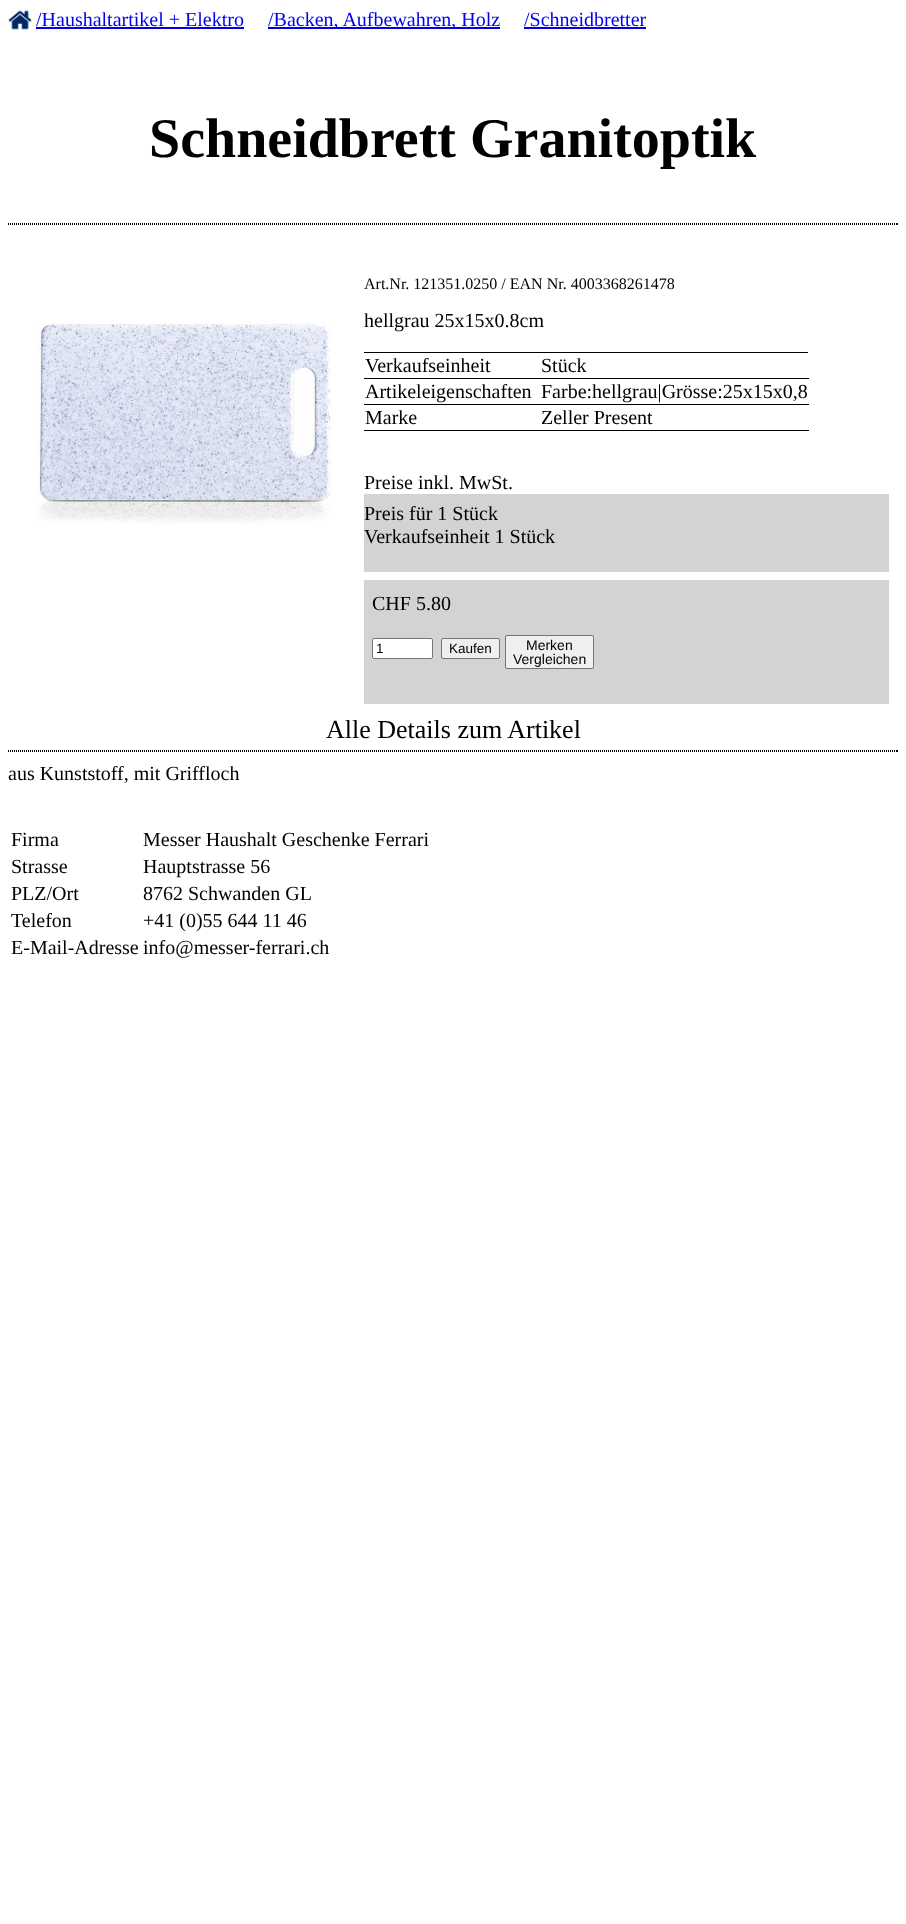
<?xml version="1.0" encoding="UTF-8"?>
<svg xmlns="http://www.w3.org/2000/svg" width="906" height="1924">
    <rect width="100%" height="100%" fill="#FFFFFF"/>
    <image x="8" y="10" width="24" height="20" href="img_01.png"/>
    <text x="36" y="26" font-family="Liberation Serif" font-size="20" fill="#0000EE">/Haushaltartikel + Elektro</text>
    <rect x="36" y="27" width="208" height="2" fill="#0000EE"/>
    <rect x="268" y="27" width="232" height="2" fill="#0000EE"/>
    <text x="268" y="26" font-family="Liberation Serif" font-size="20" fill="#0000EE">/Backen, Aufbewahren, Holz</text>
    <text x="524" y="26" font-family="Liberation Serif" font-size="20" fill="#0000EE">/Schneidbretter</text>
    <rect x="524" y="27" width="122" height="2" fill="#0000EE"/>
    <text x="149" y="157" font-family="Liberation Serif" font-size="56" font-weight="700" fill="#000000">Schneidbrett Granitoptik</text>
    <path d="M 8 223.5 H 898" fill="none" stroke="#000000" stroke-dasharray="1 1"/>
    <rect x="897" y="223" width="1" height="2" fill="#000000"/>
    <path d="M 8 224.5 H 898" fill="none" stroke="#000000" stroke-dasharray="1 1"/>
    <image x="37" y="321" width="296" height="203" href="img_02.png"/>
    <text x="364" y="289" font-family="Liberation Serif" font-size="16" fill="#000000">Art.Nr. 121351.0250 / EAN Nr. 4003368261478</text>
    <text x="364" y="327" font-family="Liberation Serif" font-size="20" fill="#000000">hellgrau 25x15x0.8cm</text>
    <rect x="364" y="352" width="444" height="1" fill="#000000"/>
    <rect x="364" y="378" width="445" height="1" fill="#000000"/>
    <text x="365" y="372" font-family="Liberation Serif" font-size="20" fill="#000000">Verkaufseinheit</text>
    <text x="541" y="372" font-family="Liberation Serif" font-size="20" fill="#000000">Stück</text>
    <rect x="364" y="404" width="445" height="1" fill="#000000"/>
    <text x="365" y="398" font-family="Liberation Serif" font-size="20" fill="#000000">Artikeleigenschaften</text>
    <text x="541" y="398" font-family="Liberation Serif" font-size="20" fill="#000000">Farbe:hellgrau|Grösse:25x15x0,8</text>
    <rect x="364" y="430" width="445" height="1" fill="#000000"/>
    <text x="365" y="424" font-family="Liberation Serif" font-size="20" fill="#000000">Marke</text>
    <text x="541" y="424" font-family="Liberation Serif" font-size="20" fill="#000000">Zeller Present</text>
    <text x="364" y="489" font-family="Liberation Serif" font-size="20" fill="#000000">Preise inkl. MwSt.</text>
    <rect x="364" y="494" width="525" height="78" fill="#D3D3D3"/>
    <text font-family="Liberation Serif" font-size="20" fill="#000000">
        <tspan x="364" y="520">Preis für 1 Stück</tspan>
        <tspan x="364" y="543">Verkaufseinheit 1 Stück</tspan>
    </text>
    <rect x="364" y="580" width="525" height="124" fill="#D3D3D3"/>
    <text x="372" y="610" font-family="Liberation Serif" font-size="20" fill="#000000">CHF 5.80</text>
    <rect x="372.5" y="638.5" width="60" height="20" rx="1.5" fill="#FFFFFF" stroke="#767676"/>
    <text x="376" y="653" font-family="Liberation Sans" font-size="13.5" fill="#000000">1</text>
    <rect x="441.5" y="638.5" width="58" height="20" rx="1.5" fill="#EFEFEF" stroke="#767676"/>
    <text x="449" y="653" font-family="Liberation Sans" font-size="13.5" fill="#000000">Kaufen</text>
    <rect x="505.5" y="635.5" width="88" height="33" rx="1.5" fill="#EFEFEF" stroke="#767676"/>
    <text x="526" y="650" font-family="Liberation Sans" font-size="14" fill="#000000">Merken</text>
    <text x="513" y="664" font-family="Liberation Sans" font-size="14" fill="#000000">Vergleichen</text>
    <text x="326" y="738" font-family="Liberation Serif" font-size="26" fill="#000000">Alle Details zum Artikel</text>
    <path d="M 8 750.5 H 898" fill="none" stroke="#000000" stroke-dasharray="1 1"/>
    <rect x="897" y="750" width="1" height="2" fill="#000000"/>
    <path d="M 8 751.5 H 898" fill="none" stroke="#000000" stroke-dasharray="1 1"/>
    <text x="8" y="780" font-family="Liberation Serif" font-size="20" fill="#000000">aus Kunststoff, mit Griffloch</text>
    <text x="11" y="846" font-family="Liberation Serif" font-size="20" fill="#000000">Firma</text>
    <text x="143" y="846" font-family="Liberation Serif" font-size="20" fill="#000000">Messer Haushalt Geschenke Ferrari</text>
    <text x="11" y="873" font-family="Liberation Serif" font-size="20" fill="#000000">Strasse</text>
    <text x="143" y="873" font-family="Liberation Serif" font-size="20" fill="#000000">Hauptstrasse 56</text>
    <text x="11" y="900" font-family="Liberation Serif" font-size="20" fill="#000000">PLZ/Ort</text>
    <text x="143" y="900" font-family="Liberation Serif" font-size="20" fill="#000000">8762 Schwanden GL</text>
    <text x="11" y="927" font-family="Liberation Serif" font-size="20" fill="#000000">Telefon</text>
    <text x="143" y="927" font-family="Liberation Serif" font-size="20" fill="#000000">+41 (0)55 644 11 46</text>
    <text x="11" y="954" font-family="Liberation Serif" font-size="20" fill="#000000">E-Mail-Adresse</text>
    <text x="143" y="954" font-family="Liberation Serif" font-size="20" fill="#000000">info@messer-ferrari.ch</text>
</svg>
